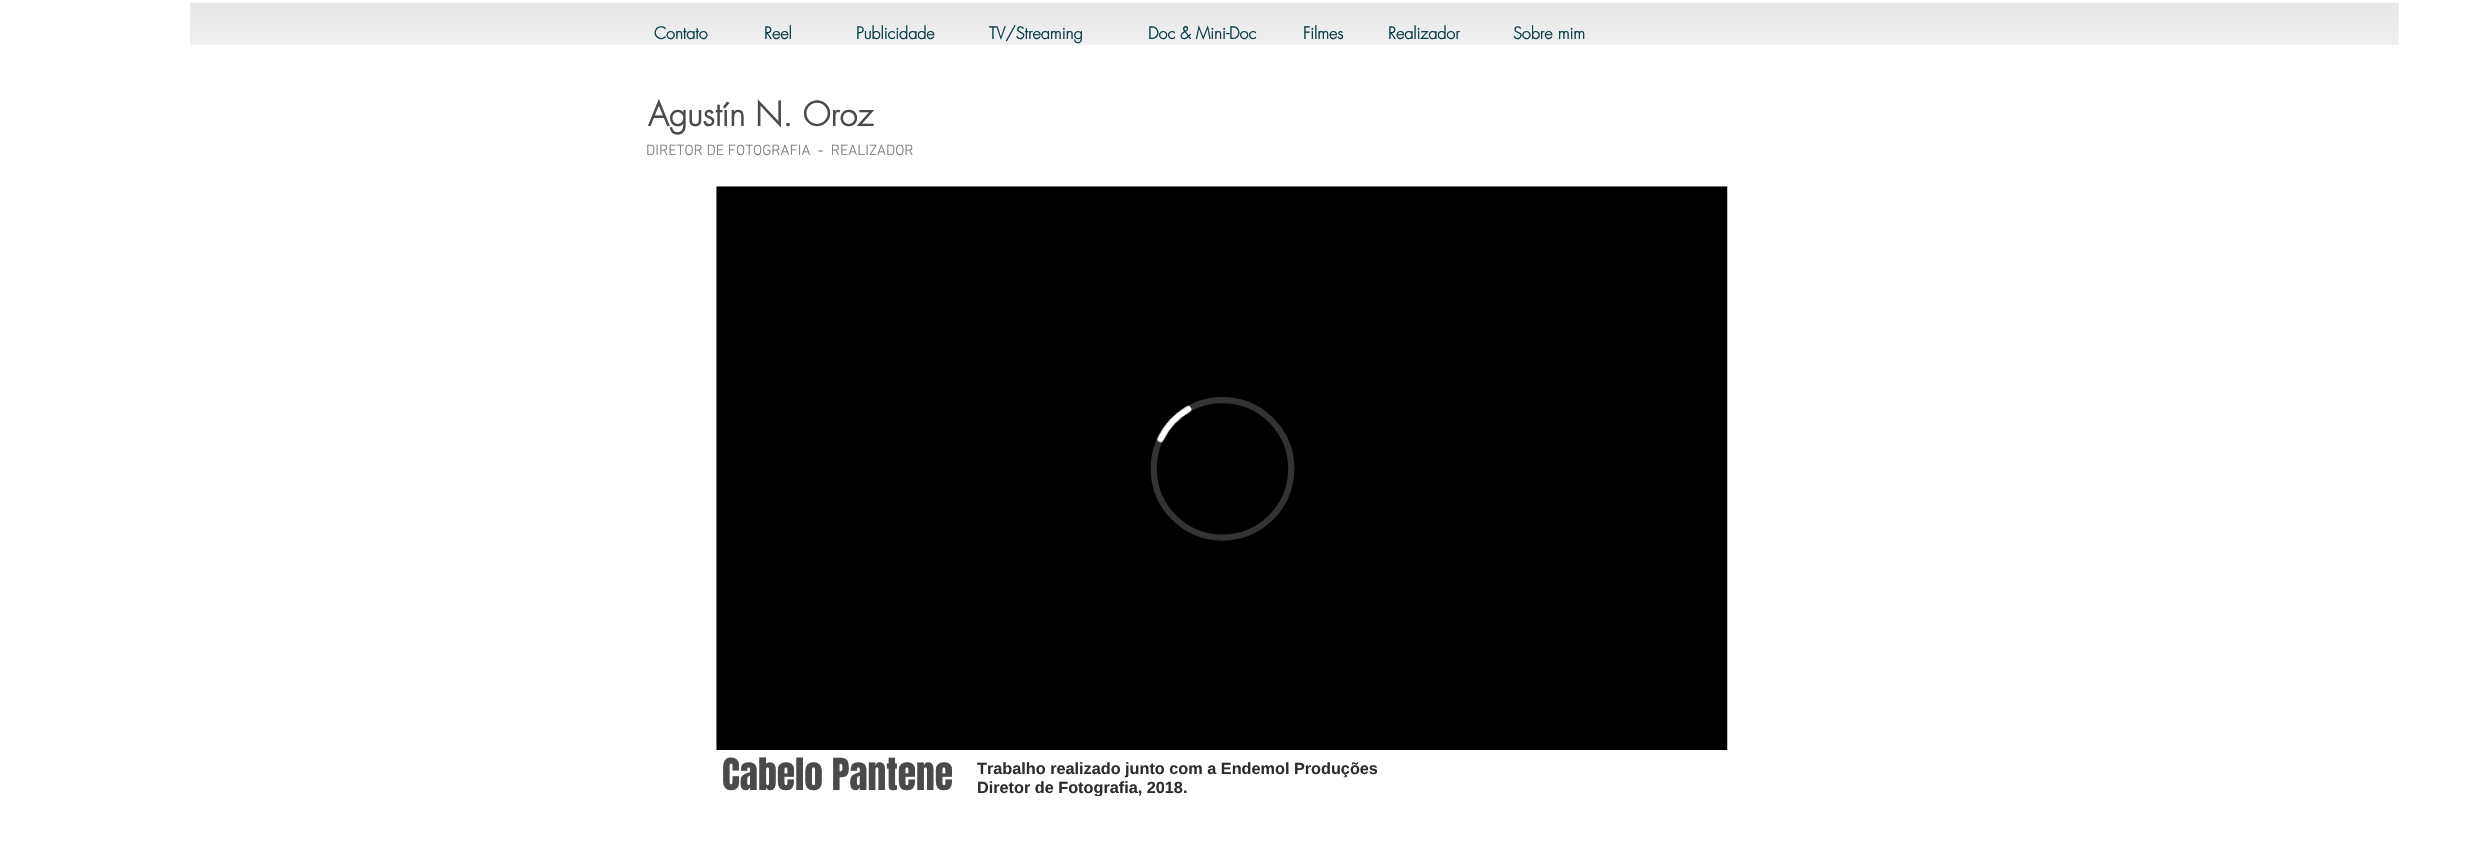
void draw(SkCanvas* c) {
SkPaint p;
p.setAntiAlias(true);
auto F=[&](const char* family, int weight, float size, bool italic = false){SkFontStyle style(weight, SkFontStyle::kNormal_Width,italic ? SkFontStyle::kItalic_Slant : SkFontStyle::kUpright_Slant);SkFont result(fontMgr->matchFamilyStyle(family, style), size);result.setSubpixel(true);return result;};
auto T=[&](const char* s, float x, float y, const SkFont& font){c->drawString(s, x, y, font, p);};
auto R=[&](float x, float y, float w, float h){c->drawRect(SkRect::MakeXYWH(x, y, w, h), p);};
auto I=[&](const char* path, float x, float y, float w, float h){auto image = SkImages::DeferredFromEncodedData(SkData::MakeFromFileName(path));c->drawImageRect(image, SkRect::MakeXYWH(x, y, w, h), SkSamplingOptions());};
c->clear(0xffffffff);
I("1.png",190,2,2209,43);
auto f1 = F("futura",700,16.25);
p.setColor(0xff0a404a);
T("Contato",654,39,f1);
T("Reel",764,39,f1);
T("Publicidade",856,39,f1);
T("TV/Streaming",989,39,f1);
T("Doc & Mini-Doc",1148,39,f1);
T("Filmes",1303,39,f1);
T("Realizador",1388,39,f1);
T("Sobre mim",1513,39,f1);
auto f2 = F("futura",700,32.5);
p.setColor(0xff4a4a4a);
T("Agustín N. Oroz",648,126,f2);
auto f3 = F("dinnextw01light",300,15);
p.setColor(0xff767676);
T("DIRETOR DE FOTOGRAFIA  -  REALIZADOR",646,155,f3);
I("2.png",716,186,1012,564);
auto f4 = F("Anton",400,37.5);
p.setColor(0xff4a4a4a);
T("Cabelo Pantene",722,790,f4);
auto f5 = F("Liberation Sans",700,16.25);
p.setColor(0xff2d2d2d);
T("Trabalho realizado junto com a Endemol Produções",977,774,f5);
T("Diretor de Fotografia, 2018.",977,793,f5);
p.setColor(0xffffffff);
R(1096,796,5,1);
}
